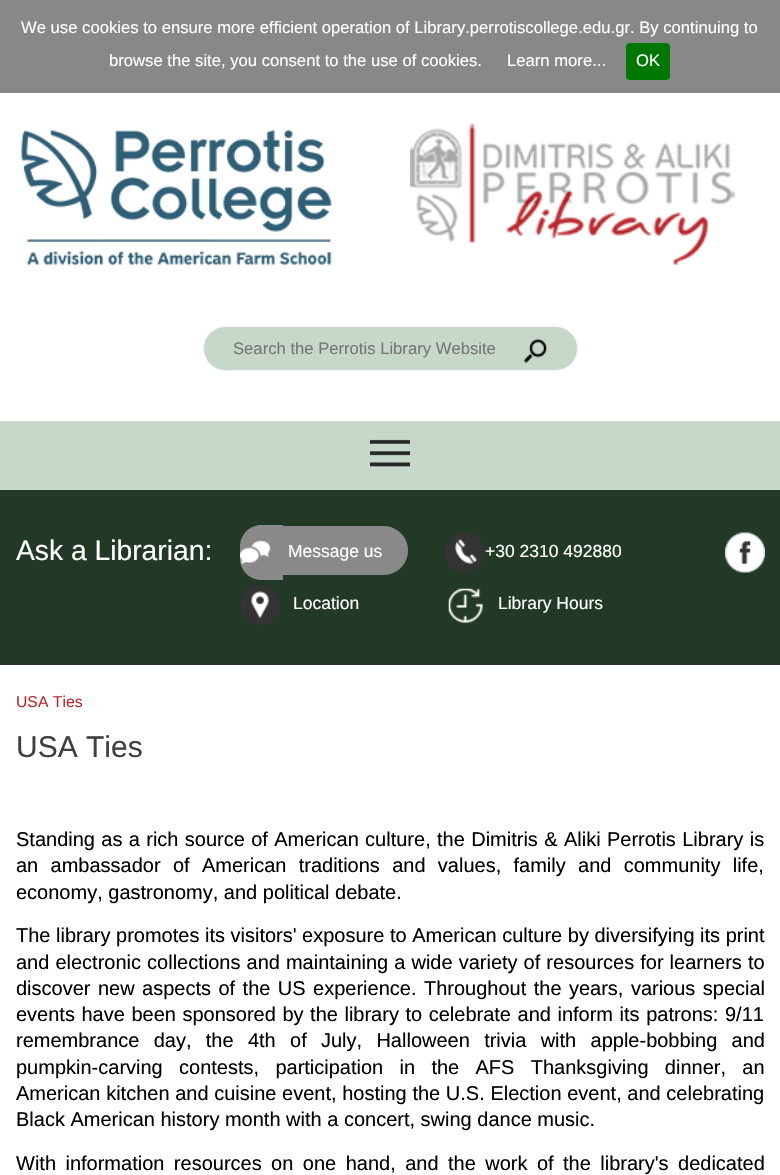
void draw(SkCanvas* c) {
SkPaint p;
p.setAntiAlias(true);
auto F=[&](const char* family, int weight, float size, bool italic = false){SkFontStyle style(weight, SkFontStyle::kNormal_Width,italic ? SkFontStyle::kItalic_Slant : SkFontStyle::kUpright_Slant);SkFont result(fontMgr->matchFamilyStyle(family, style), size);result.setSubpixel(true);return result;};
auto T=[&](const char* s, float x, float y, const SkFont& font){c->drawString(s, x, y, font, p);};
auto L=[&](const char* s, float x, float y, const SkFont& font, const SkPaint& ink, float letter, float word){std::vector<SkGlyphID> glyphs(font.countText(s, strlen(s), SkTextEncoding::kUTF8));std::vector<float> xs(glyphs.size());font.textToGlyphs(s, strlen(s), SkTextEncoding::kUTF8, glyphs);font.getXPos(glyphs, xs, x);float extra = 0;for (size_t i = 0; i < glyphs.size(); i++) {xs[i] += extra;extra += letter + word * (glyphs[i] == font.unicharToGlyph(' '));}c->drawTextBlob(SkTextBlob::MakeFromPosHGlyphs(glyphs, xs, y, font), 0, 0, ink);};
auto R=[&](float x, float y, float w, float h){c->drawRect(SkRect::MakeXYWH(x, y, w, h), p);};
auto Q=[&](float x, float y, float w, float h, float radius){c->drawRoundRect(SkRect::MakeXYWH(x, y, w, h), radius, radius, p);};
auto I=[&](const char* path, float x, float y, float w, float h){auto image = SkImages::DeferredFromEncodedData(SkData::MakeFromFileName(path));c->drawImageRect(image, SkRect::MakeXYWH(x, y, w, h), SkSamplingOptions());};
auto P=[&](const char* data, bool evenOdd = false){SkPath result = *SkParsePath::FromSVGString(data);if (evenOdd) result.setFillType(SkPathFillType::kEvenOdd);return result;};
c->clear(0xffffffff);
p.setColor(0xff888888);
R(0,0,780,93);
auto f1 = F("Arimo",400,16.65);
p.setColor(0xffffffff);
T("We use cookies to ensure more efficient operation of Library.perrotiscollege.edu.gr. By continuing to",21,33,f1);
T("browse the site, you consent to the use of cookies.",109,66,f1);
T("Learn more...",507,66,f1);
p.setColor(0xff007700);
Q(626,43,44,37,4);
p.setColor(0xffffffff);
T("OK",636,66,f1);
I("1.png",21,130,311,136);
I("2.png",410,123,325,142);
p.setColor(0xffc7d8ca);
c->drawRoundRect(SkRect::MakeXYWH(203.5,326.5,374,44),22,22,p);
p.setStroke(true);
p.setStrokeWidth(1);
p.setColor(0xfff5f5f5);
c->drawRoundRect(SkRect::MakeXYWH(203.5,326.5,374,44),22,22,p);
p.setStroke(false);
p.setColor(0xff757575);
T("Search the Perrotis Library Website",233,354,f1);
I("3.png",523,338,24,25);
p.setColor(0xffc7d8ca);
R(0,421,780,69);
I("4.png",370,439,40,28);
p.setColor(0xff233927);
R(0,490,780,175);
auto f2 = F("Arimo",400,28.25);
p.setColor(0xffffffff);
T("Ask a Librarian:",16,560,f2);
p.setColor(0xff898989);
c->drawPath(P("M261.5 525h21.5v55h-21.5c-12 0-21.5-9.5-21.5-21.5v-12c0-12 9.5-21.5 21.5-21.5z"),p);
I("5.png",240,540,31,24);
c->drawPath(P("M283 526h100.5c13.5 0 24.5 11 24.5 24.5c0 13.5-11 24.5-24.5 24.5h-100.5z"),p);
auto f3 = F("Arimo",400,17.5);
p.setColor(0xffffffff);
T("Message us",288,557,f3);
I("6.png",445,532,40,41);
T("+30 2310 492880",485,557,f3);
I("7.png",240,585,40,40);
T("Location",293,609,f3);
I("8.png",448,588,35,35);
T("Library Hours",498,609,f3);
I("9.png",725,532,40,41);
auto f4 = F("Arimo",400,15.75);
p.setColor(0xffb8292f);
T("USA Ties",16,707,f4);
auto f5 = F("Arimo",400,30);
p.setColor(0xff413e3f);
T("USA Ties",16,757,f5);
auto f6 = F("Liberation Sans",400,20);
p.setColor(0xff000000);
L("Standing as a rich source of American culture, the Dimitris & Aliki Perrotis Library is",16,846,f6,p,0,.8);
L("an ambassador of American traditions and values, family and community life,",16,872,f6,p,0,6.75);
T("economy, gastronomy, and political debate.",16,899,f6);
T("The library promotes its visitors' exposure to American culture by diversifying its print",16,942,f6);
L("and electronic collections and maintaining a wide variety of resources for learners to",16,969,f6,p,0,.5);
L("discover new aspects of the US experience. Throughout the years, various special",16,995,f6,p,0,1.9);
L("events have been sponsored by the library to celebrate and inform its patrons: 9/11",16,1021,f6,p,0,1);
L("remembrance day, the 4th of July, Halloween trivia with apple-bobbing and",16,1047,f6,p,0,8.75);
L("pumpkin-carving contests, participation in the AFS Thanksgiving dinner, an",16,1074,f6,p,0,10.75);
L("American kitchen and cuisine event, hosting the U.S. Election event, and celebrating",16,1100,f6,p,0,.1);
T("Black American history month with a concert, swing dance music.",16,1126,f6);
L("With information resources on one hand, and the work of the library's dedicated",16,1170,f6,p,0,3.9);
}
